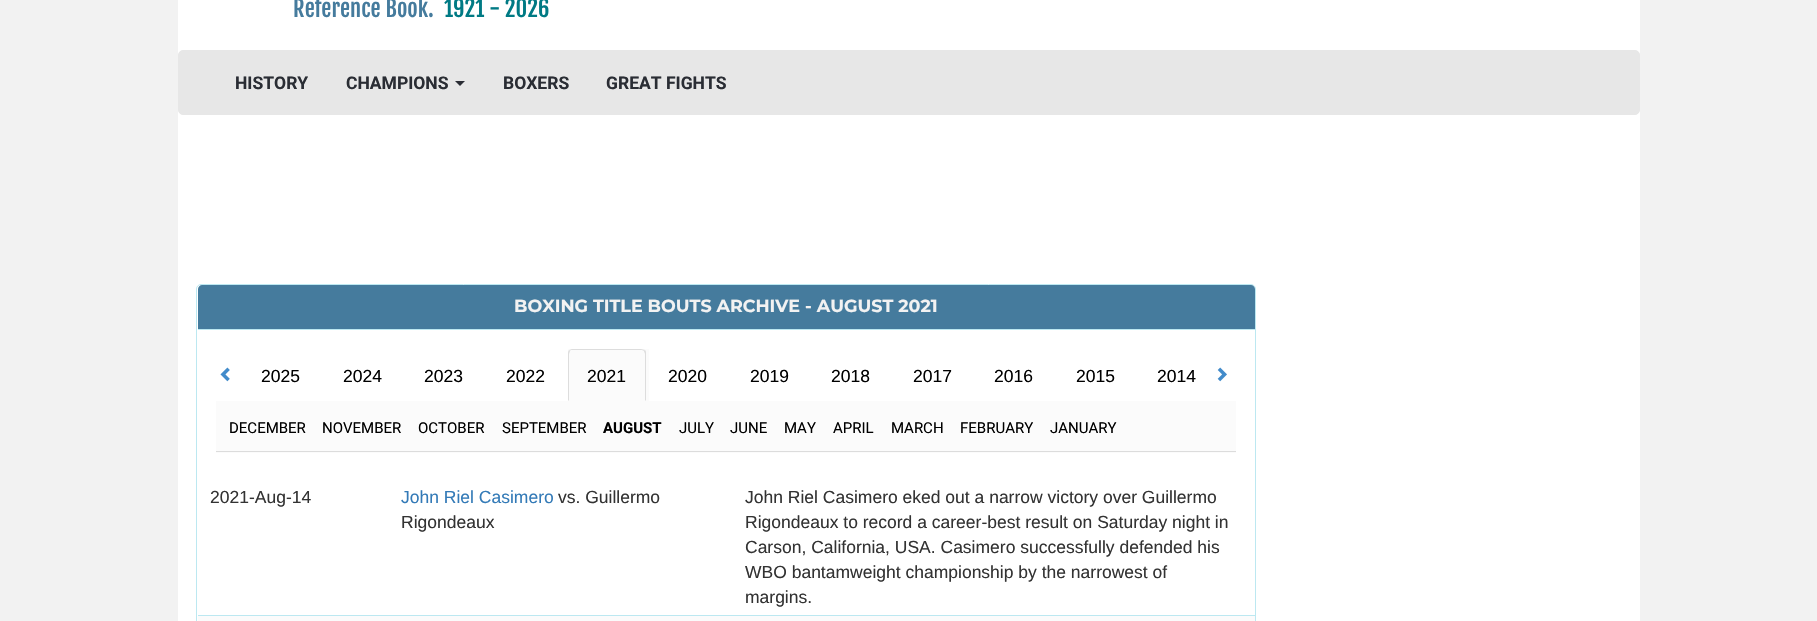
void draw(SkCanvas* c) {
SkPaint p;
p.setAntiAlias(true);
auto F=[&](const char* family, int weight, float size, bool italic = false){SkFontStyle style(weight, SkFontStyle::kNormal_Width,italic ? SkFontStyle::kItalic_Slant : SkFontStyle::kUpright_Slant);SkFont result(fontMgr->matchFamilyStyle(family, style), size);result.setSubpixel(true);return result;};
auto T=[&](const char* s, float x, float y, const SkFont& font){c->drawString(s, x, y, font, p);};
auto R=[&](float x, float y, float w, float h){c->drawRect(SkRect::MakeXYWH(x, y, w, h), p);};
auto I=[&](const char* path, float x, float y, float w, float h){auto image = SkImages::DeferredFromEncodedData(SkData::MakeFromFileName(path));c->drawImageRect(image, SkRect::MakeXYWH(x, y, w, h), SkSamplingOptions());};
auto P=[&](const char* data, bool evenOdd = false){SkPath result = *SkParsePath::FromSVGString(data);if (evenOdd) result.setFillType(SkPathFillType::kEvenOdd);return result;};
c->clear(0xfff2f2f2);
p.setColor(0xffffffff);
R(178,0,1462,621);
auto f1 = F("Fjalla One",400,22.5);
p.setColor(0xff457b9d);
T("Reference Book.",293,17,f1);
p.setColor(0xff007a84);
T("1921 - 2026",444,17,f1);
p.setColor(0xffe7e7e7);
c->drawRoundRect(SkRect::MakeXYWH(178.5,50.5,1461,64),4.5,4.5,p);
p.setStroke(true);
p.setStrokeWidth(1);
c->drawRoundRect(SkRect::MakeXYWH(178.5,50.5,1461,64),4.5,4.5,p);
auto f2 = F("Roboto",700,17.5);
p.setStroke(false);
p.setColor(0xff2a2d34);
T("HISTORY",235,89,f2);
T("CHAMPIONS",346,89,f2);
c->drawPath(P("M455 81h10l-5 5z"),p);
T("BOXERS",503,89,f2);
T("GREAT FIGHTS",606,89,f2);
p.setStroke(true);
p.setColor(0xffbce8f1);
c->drawRoundRect(SkRect::MakeXYWH(196.5,284.5,1059,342),4.5,4.5,p);
p.setStroke(false);
p.setColor(0xff457b9d);
c->drawPath(P("M202 285h1049c2 0 4 2 4 4v41h-1057v-41c0-2 2-4 4-4z"),p);
p.setColor(0xffbce8f1);
R(198,329,1057,1);
auto f3 = F("Montserrat",700,17.5);
p.setColor(0xfff2f2f2);
T("BOXING TITLE BOUTS ARCHIVE - AUGUST 2021",514,312,f3);
I("1.png",220,367,10,15);
auto f4 = F("Liberation Sans",400,17.5);
p.setColor(0xff000000);
T("2025",261,382,f4);
T("2024",343,382,f4);
T("2023",424,382,f4);
T("2022",506,382,f4);
p.setColor(0xfffbfbfb);
R(568,349,81,52);
p.setColor(0xffdddddd);
c->drawPath(P("M572 349c-1 0-2 1-3 1l1 1c0-1 1-1 2-1h69c1 0 2 0 3 1l1-1c-1 0-3-1-4-1z"),p);
c->drawPath(P("M646 401v-47c0-2 0-3-1-4l-1 1c0 1 1 2 1 3v46z"),p);
c->drawPath(P("M569 350c-1 1-1 3-1 4v47l1-1v-46l1-3z"),p);
p.setColor(0xff000000);
T("2021",587,382,f4);
T("2020",668,382,f4);
T("2019",750,382,f4);
T("2018",831,382,f4);
T("2017",913,382,f4);
T("2016",994,382,f4);
T("2015",1076,382,f4);
T("2014",1157,382,f4);
I("2.png",1217,367,10,15);
p.setColor(0xfffbfbfb);
R(216,401,1020,52);
p.setColor(0xffdcdcdc);
R(216,451,1020,1);
auto f5 = F("Roboto",400,15);
p.setColor(0xff000000);
T("DECEMBER",229,433,f5);
T("NOVEMBER",322,433,f5);
T("OCTOBER",418,433,f5);
T("SEPTEMBER",502,433,f5);
auto f6 = F("Roboto",700,15);
T("AUGUST",603,433,f6);
T("JULY",679,433,f5);
T("JUNE",730,433,f5);
T("MAY",784,433,f5);
T("APRIL",833,433,f5);
T("MARCH",891,433,f5);
T("FEBRUARY",960,433,f5);
T("JANUARY",1050,433,f5);
p.setColor(0xffbce8f1);
R(198,615,1057,1);
p.setColor(0xff333333);
T("2021-Aug-14",210,503,f4);
p.setColor(0xff337ab7);
T("John Riel Casimero",401,503,f4);
p.setColor(0xff333333);
T("vs. Guillermo",558,503,f4);
T("Rigondeaux",401,528,f4);
T("John Riel Casimero eked out a narrow victory over Guillermo",745,503,f4);
T("Rigondeaux to record a career-best result on Saturday night in",745,528,f4);
T("Carson, California, USA. Casimero successfully defended his",745,553,f4);
T("WBO bantamweight championship by the narrowest of",745,578,f4);
T("margins.",745,603,f4);
p.setColor(0xfffbfbfb);
R(198,616,1057,5);
}
